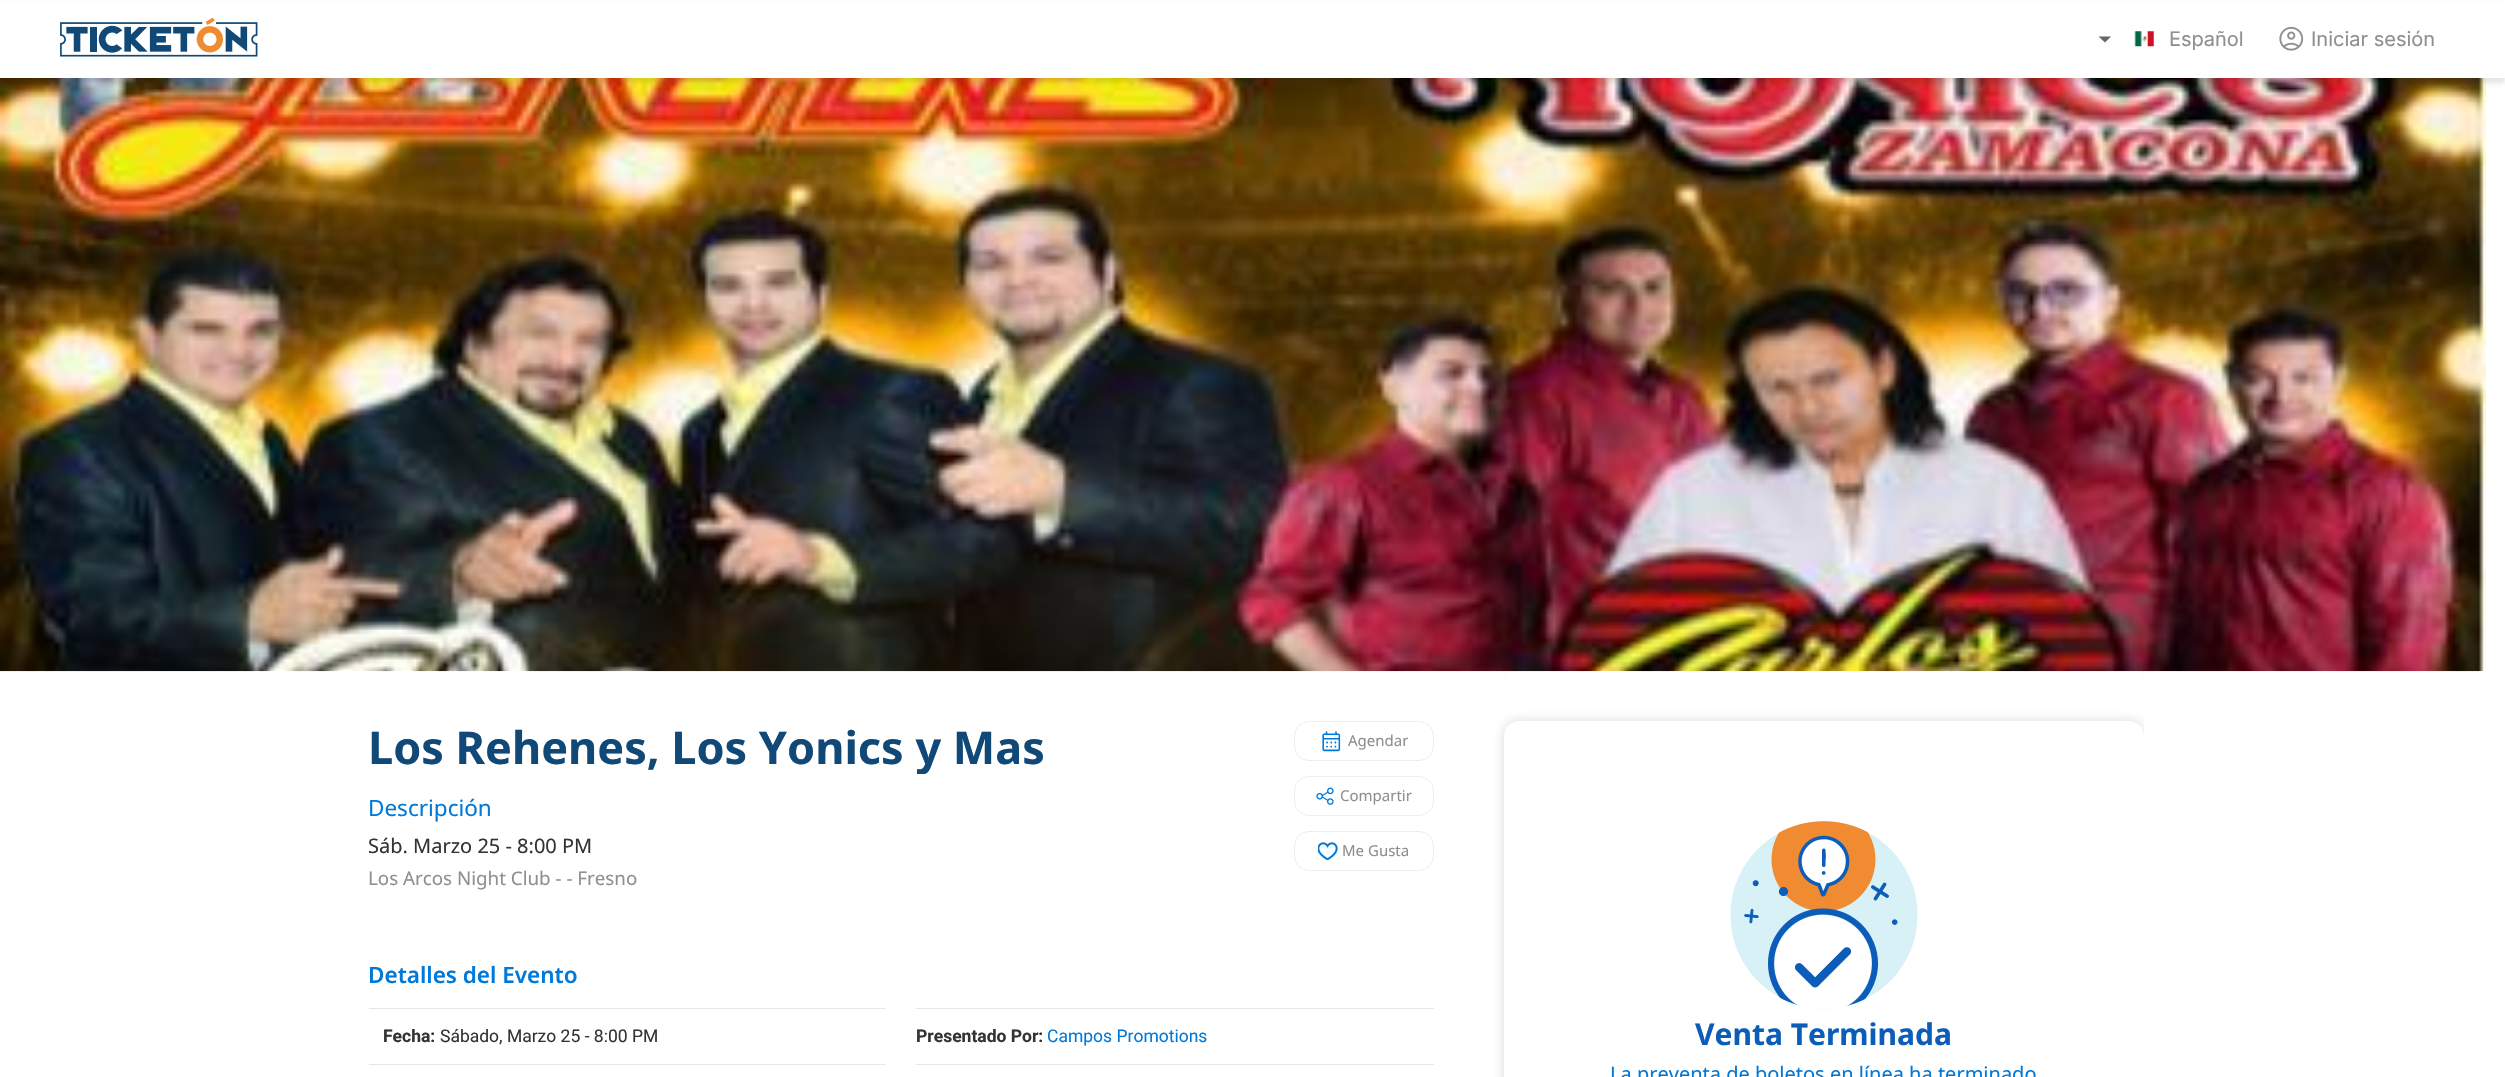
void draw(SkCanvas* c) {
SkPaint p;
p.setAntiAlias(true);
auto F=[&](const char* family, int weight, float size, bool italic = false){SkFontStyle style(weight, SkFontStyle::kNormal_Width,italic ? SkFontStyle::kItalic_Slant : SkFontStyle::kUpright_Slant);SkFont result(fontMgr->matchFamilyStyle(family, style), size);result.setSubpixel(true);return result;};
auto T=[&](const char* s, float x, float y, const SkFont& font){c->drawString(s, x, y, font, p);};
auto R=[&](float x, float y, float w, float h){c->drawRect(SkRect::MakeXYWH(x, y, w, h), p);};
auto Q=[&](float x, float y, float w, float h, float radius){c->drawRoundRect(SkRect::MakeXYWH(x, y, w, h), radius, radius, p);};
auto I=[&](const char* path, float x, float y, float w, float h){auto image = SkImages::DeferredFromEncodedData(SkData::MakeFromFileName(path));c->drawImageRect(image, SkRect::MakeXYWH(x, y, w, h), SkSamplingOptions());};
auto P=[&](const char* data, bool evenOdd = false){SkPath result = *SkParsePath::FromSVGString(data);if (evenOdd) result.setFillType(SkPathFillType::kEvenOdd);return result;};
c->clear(0xffffffff);
p.setColor(0xfffcfcfc);
R(1504,671,640,8);
p.setColor(0xffffffff);
Q(1504,671,640,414,8);
I("4.png",0,78,2487,594);
p.setColor(0x1a000000);
p.setMaskFilter(SkMaskFilter::MakeBlur(kNormal_SkBlurStyle, 2.5));
c->drawRect(SkRect::MakeXYWH(0,5,2505,78),p);
p.setMaskFilter(nullptr);
p.setColor(0xffffffff);
R(0,2,2505,76);
I("1.png",60,18,198,39);
p.setColor(0xff666666);
c->drawPath(P("M2098.5 36.5h12.5l-6 6z"),p);
I("2.png",2134,31,20,16);
auto f1 = F("Inter",400,20);
p.setColor(0xff8e8e93);
T("Español",2169,46,f1);
I("3.png",2279,26,25,25);
T("Iniciar sesión",2311,46,f1);
c->save();
c->clipRect(SkRect::MakeXYWH(369,721,676,53));
auto f2 = F("Noto Sans",700,45);
p.setColor(0xff104977);
T("Los Rehenes, Los Yonics y Mas",368,764,f2);
c->restore();
auto f3 = F("Noto Sans",400,22.5);
p.setColor(0xff0079d9);
T("Descripción",368,816,f3);
auto f4 = F("Noto Sans",400,20);
p.setColor(0xff333333);
T("Sáb. Marzo 25 - 8:00 PM",368,853,f4);
auto f5 = F("Noto Sans",400,18.75);
p.setColor(0xff8e8e93);
T("Los Arcos Night Club - - Fresno",368,885,f5);
p.setStroke(true);
p.setStrokeWidth(1);
p.setColor(0xffededef);
c->drawRoundRect(SkRect::MakeXYWH(1294.5,721.5,139,39),14.5,14.5,p);
I("5.png",1322,731,19,21);
auto f6 = F("Noto Sans",400,15);
p.setStroke(false);
p.setColor(0xff8e8e93);
T("Agendar",1348,746,f6);
p.setStroke(true);
p.setColor(0xffededef);
c->drawRoundRect(SkRect::MakeXYWH(1294.5,776.5,139,39),14.5,14.5,p);
I("6.png",1316,787,18,18);
p.setStroke(false);
p.setColor(0xff8e8e93);
T("Compartir",1340,801,f6);
p.setStroke(true);
p.setColor(0xffededef);
c->drawRoundRect(SkRect::MakeXYWH(1294.5,831.5,139,39),14.5,14.5,p);
I("7.png",1318,842,20,19);
p.setStroke(false);
p.setColor(0xff8e8e93);
T("Me Gusta",1342,856,f6);
auto f7 = F("Noto Sans",600,22.5);
p.setColor(0xff0079d9);
T("Detalles del Evento",368,983,f7);
p.setColor(0xffe5e5ea);
R(369,1008,517,1);
auto f8 = F("Roboto",700,17.5);
p.setColor(0xff333333);
T("Fecha:",383,1042,f8);
auto f9 = F("Roboto",400,17.5);
T("Sábado, Marzo 25 - 8:00 PM",440,1042,f9);
p.setColor(0xffe5e5ea);
R(369,1064,517,1);
R(916,1008,518,1);
p.setColor(0xff333333);
T("Presentado Por:",916,1042,f8);
p.setColor(0xff0079d9);
T("Campos Promotions",1047,1042,f9);
p.setColor(0xffe5e5ea);
R(916,1064,518,1);
c->save();
c->clipRect(SkRect::MakeXYWH(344,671,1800,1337));
c->clipPath(P("M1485 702h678v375h-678zm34 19h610c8.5 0 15 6.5 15 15v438c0 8.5-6.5 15-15 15h-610c-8.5 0-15-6.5-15-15v-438c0-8.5 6.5-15 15-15z",true),true);
p.setColor(0x33404045);
p.setMaskFilter(SkMaskFilter::MakeBlur(kNormal_SkBlurStyle, 6));
c->drawRoundRect(SkRect::MakeXYWH(1504,721,640,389),15,15,p);
p.setMaskFilter(nullptr);
c->restore();
I("8.png",1730,821,188,188);
auto f10 = F("Noto Sans",700,30);
p.setColor(0xff0c5db9);
T("Venta Terminada",1695,1045,f10);
p.setColor(0xff0079d9);
T("La preventa de boletos en línea ha terminado",1610,1081,f4);
}
